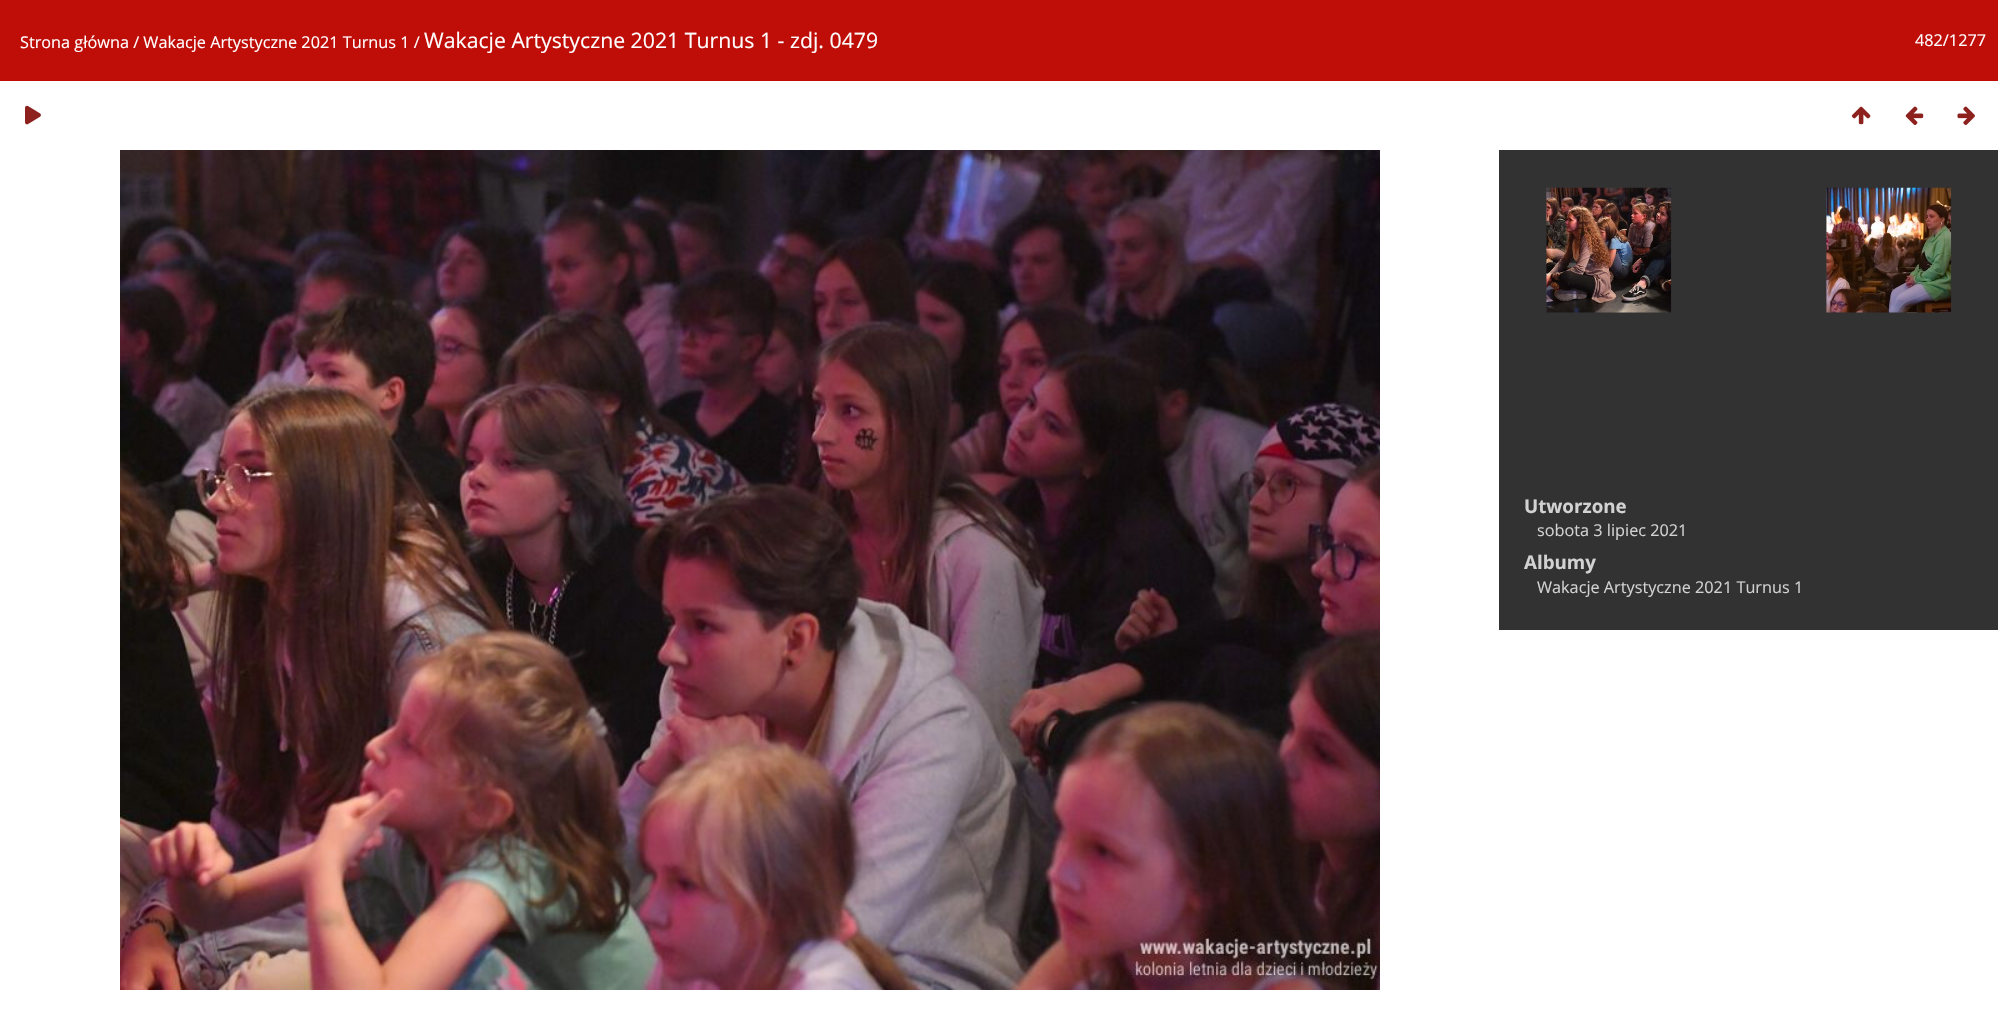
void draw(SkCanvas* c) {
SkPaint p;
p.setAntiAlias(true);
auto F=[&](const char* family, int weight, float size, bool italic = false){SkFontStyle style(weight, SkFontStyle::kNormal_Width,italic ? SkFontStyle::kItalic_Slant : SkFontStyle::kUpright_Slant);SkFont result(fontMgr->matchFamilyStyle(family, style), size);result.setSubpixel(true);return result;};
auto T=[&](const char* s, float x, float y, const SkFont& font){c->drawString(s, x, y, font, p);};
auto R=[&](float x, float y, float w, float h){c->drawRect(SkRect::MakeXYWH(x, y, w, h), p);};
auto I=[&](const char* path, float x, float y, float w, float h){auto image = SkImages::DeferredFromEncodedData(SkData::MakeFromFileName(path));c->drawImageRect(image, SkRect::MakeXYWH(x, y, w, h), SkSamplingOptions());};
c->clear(0xffffffff);
p.setColor(0xffbf0d08);
R(0,0,1998,81);
auto f1 = F("Open Sans",400,16.25);
p.setColor(0xffffffff);
T("Strona główna / Wakacje Artystyczne 2021 Turnus 1 /",20,48,f1);
auto f2 = F("Open Sans",400,21.25);
T("Wakacje Artystyczne 2021 Turnus 1 - zdj. 0479",424,48,f2);
T("482/1277",1915,46,f1);
I("1.png",25,105,16,20);
I("2.png",1851,106,20,19);
I("3.png",1905,106,19,19);
I("4.png",1957,106,18,19);
I("5.png",120,150,1260,840);
p.setColor(0xff323232);
R(1499,150,499,480);
I("6.png",1546,187,126,126);
I("7.png",1826,187,126,126);
auto f3 = F("Open Sans",700,18.75);
p.setColor(0xffd2d2d2);
T("Utworzone",1524,513,f3);
T("sobota 3 lipiec 2021",1537,536,f1);
T("Albumy",1524,569,f3);
T("Wakacje Artystyczne 2021 Turnus 1",1537,593,f1);
}
